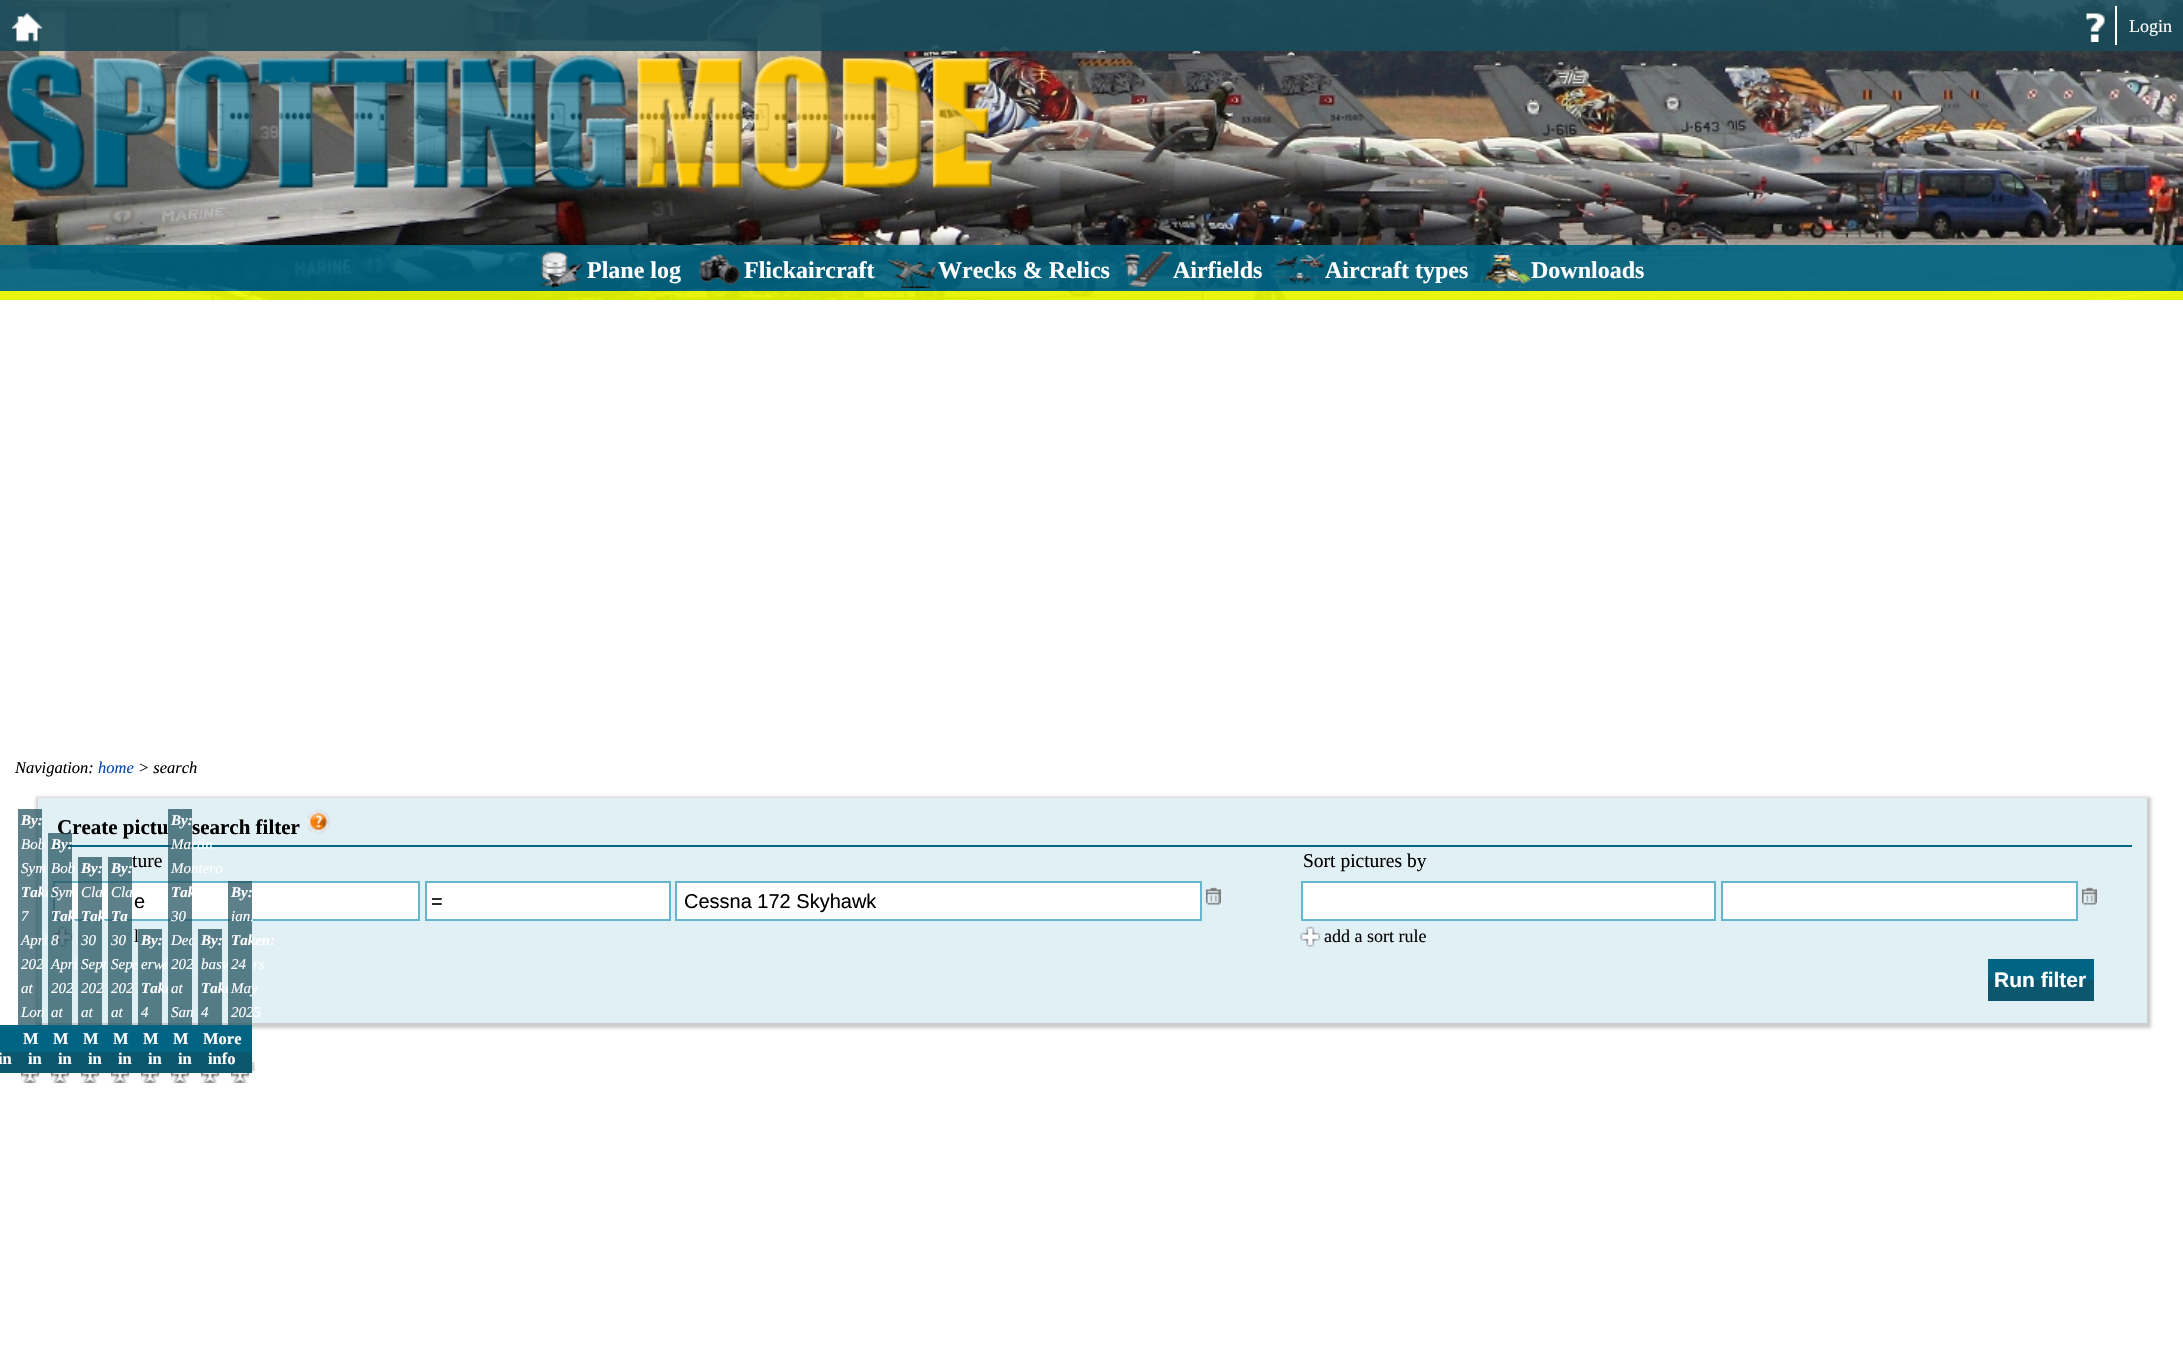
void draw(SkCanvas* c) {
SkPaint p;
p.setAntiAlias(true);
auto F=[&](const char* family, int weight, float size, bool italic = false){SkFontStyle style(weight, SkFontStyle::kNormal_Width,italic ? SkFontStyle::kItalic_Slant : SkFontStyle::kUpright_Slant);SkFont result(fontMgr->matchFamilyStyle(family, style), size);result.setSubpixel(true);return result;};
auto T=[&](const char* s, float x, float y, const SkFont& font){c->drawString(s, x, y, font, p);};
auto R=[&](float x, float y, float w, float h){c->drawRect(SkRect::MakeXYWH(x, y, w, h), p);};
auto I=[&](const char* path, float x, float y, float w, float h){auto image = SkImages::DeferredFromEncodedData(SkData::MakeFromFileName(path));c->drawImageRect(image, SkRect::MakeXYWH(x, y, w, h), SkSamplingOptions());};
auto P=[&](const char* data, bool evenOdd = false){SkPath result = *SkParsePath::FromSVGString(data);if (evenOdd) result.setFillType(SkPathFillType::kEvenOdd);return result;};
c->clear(0xffffffff);
I("1.png",0,0,2183,300);
p.setColor(0xe6eeff00);
R(0,291,2183,9);
p.setColor(0xe6184a59);
R(0,0,2183,51);
I("2.png",12,12,30,30);
I("3.png",2086,13,19,29);
p.setColor(0xffffffff);
R(2115,6,2,39);
auto f1 = F("Liberation Serif",400,18);
T("Login",2129,32,f1);
I("4.png",7,55,986,136);
p.setColor(0xe6006482);
R(0,245,2183,46);
I("5.png",540,251,44,37);
auto f2 = F("Liberation Serif",700,24);
p.setColor(0xffffffff);
T("Plane log",587,278,f2);
I("6.png",699,253,42,33);
T("Flickaircraft",744,278,f2);
I("7.png",888,259,50,29);
T("Wrecks & Relics",938,278,f2);
I("8.png",1123,250,50,38);
T("Airfields",1173,278,f2);
I("9.png",1275,253,50,31);
T("Aircraft types",1325,278,f2);
I("10.png",1483,250,49,38);
T("Downloads",1531,278,f2);
auto f3 = F("Liberation Serif",400,16.5,true);
p.setColor(0xff000000);
T("Navigation:",15,773,f3);
p.setColor(0xff0645ad);
T("home",98,773,f3);
p.setColor(0xff000000);
T("> search",138,773,f3);
c->save();
c->clipPath(P("M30 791h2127v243h-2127zm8 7h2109v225h-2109z",true),true);
p.setColor(0x33000000);
p.setMaskFilter(SkMaskFilter::MakeBlur(kNormal_SkBlurStyle, 1.5));
c->drawRect(SkRect::MakeXYWH(36,797,2115,231),p);
p.setMaskFilter(nullptr);
c->restore();
p.setColor(0x3367b6cf);
R(38,798,2109,225);
p.setColor(0xb3184a59);
R(18,809,24,216);
auto f4 = F("Liberation Serif",700,15,true);
p.setColor(0xffffffff);
T("By:",21,825,f4);
auto f5 = F("Liberation Serif",400,15,true);
T("Bob",21,849,f5);
T("Sym",21,873,f5);
T("Take",21,897,f4);
T("7",21,921,f5);
T("Apri",21,945,f5);
T("202",21,969,f5);
T("at",21,993,f5);
T("Lon",21,1017,f5);
I("12.png",28,1073,10,2);
I("11.png",21,1073,19,10);
p.setColor(0xff006482);
R(0,1025,252,27);
p.setColor(0xff0c576e);
R(0,1052,192,21);
auto f6 = F("Liberation Serif",700,16.5);
p.setColor(0xffffffff);
T("in",-2,1064,f6);
T("e",162,969,f5);
T("e",132,969,f5);
p.setColor(0xff000000);
T("l",134,942,f1);
p.setColor(0xb3184a59);
R(138,929,24,96);
p.setColor(0xffffffff);
T("Take",141,993,f4);
p.setColor(0xff006482);
R(53,845,2079,2);
p.setColor(0xffffffff);
c->drawRect(SkRect::MakeXYWH(54,882,365,38),p);
p.setStroke(true);
p.setStrokeWidth(2);
p.setColor(0xff67b6cf);
c->drawRect(SkRect::MakeXYWH(54,882,365,38),p);
p.setStroke(false);
p.setColor(0xb3184a59);
R(168,809,24,216);
p.setColor(0xffffffff);
T("By:",171,825,f4);
T("Martin",171,849,f5);
T("Montero",171,873,f5);
T("Tak",171,897,f4);
T("30",171,921,f5);
T("Dec",171,945,f5);
T("202",171,969,f5);
T("at",171,993,f5);
T("San",171,1017,f5);
I("12.png",178,1073,10,2);
I("11.png",171,1073,19,10);
T("M",143,1044,f6);
T("in",148,1064,f6);
auto f7 = F("Liberation Serif",700,21);
p.setColor(0xff000000);
T("Create pictu",57,834,f7);
I("16.png",52,926,21,21);
p.setColor(0xb3184a59);
R(48,833,24,192);
p.setColor(0xffffffff);
T("By:",51,849,f4);
T("Bob",51,873,f5);
T("Sym",51,897,f5);
T("Tak",51,921,f4);
T("8",51,945,f5);
T("Apri",51,969,f5);
T("202",51,993,f5);
T("at",51,1017,f5);
I("12.png",58,1073,10,2);
I("11.png",51,1073,19,10);
T("M",23,1044,f6);
T("in",28,1064,f6);
p.setColor(0xb3184a59);
R(78,857,24,168);
p.setColor(0xffffffff);
T("By:",81,873,f4);
T("Cla",81,897,f5);
T("Tak",81,921,f4);
T("30",81,945,f5);
T("Sept",81,969,f5);
T("202",81,993,f5);
T("at",81,1017,f5);
I("12.png",88,1073,10,2);
I("11.png",81,1073,19,10);
T("M",53,1044,f6);
T("in",58,1064,f6);
p.setColor(0xb3184a59);
R(108,857,24,168);
p.setColor(0xffffffff);
T("By:",111,873,f4);
T("Cla",111,897,f5);
T("Ta",111,921,f4);
T("30",111,945,f5);
T("Sep",111,969,f5);
T("202",111,993,f5);
T("at",111,1017,f5);
I("12.png",118,1073,10,2);
I("11.png",111,1073,19,10);
T("M",83,1044,f6);
T("in",88,1064,f6);
p.setColor(0xb3184a59);
R(198,929,24,96);
p.setColor(0xffffffff);
T("basv",201,969,f5);
T("Take",201,993,f4);
p.setColor(0xb3184a59);
R(228,881,24,144);
p.setColor(0xffffffff);
T("By:",231,897,f4);
T("ian.",231,921,f5);
T("Taken:",231,945,f4);
T("24",231,969,f5);
T("May",231,993,f5);
T("2025",231,1017,f5);
I("13.png",238,1056,17,19);
I("11.png",231,1073,19,10);
p.setColor(0xff0c576e);
R(192,1052,60,21);
p.setColor(0xffffffff);
T("More",203,1044,f6);
T("info",208,1064,f6);
T("By:",141,945,f4);
T("erwi",141,969,f5);
T("4",141,1017,f5);
I("12.png",148,1073,10,2);
I("11.png",141,1073,19,10);
T("M",113,1044,f6);
T("in",118,1064,f6);
T("By:",201,945,f4);
T("rs",253,969,f5);
T("4",201,1017,f5);
I("12.png",208,1073,10,2);
I("11.png",201,1073,19,10);
T("M",173,1044,f6);
T("in",178,1064,f6);
p.setColor(0xff000000);
T("search filter",192,834,f7);
I("14.png",307,810,23,24);
auto f8 = F("Liberation Serif",400,19.5);
T("ture",132,867,f8);
auto f9 = F("Liberation Sans",400,20);
T("e",134,908,f9);
p.setColor(0xffffffff);
c->drawRect(SkRect::MakeXYWH(426,882,244,38),p);
p.setStroke(true);
p.setColor(0xff67b6cf);
c->drawRect(SkRect::MakeXYWH(426,882,244,38),p);
p.setStroke(false);
p.setColor(0xff000000);
T("=",431,908,f9);
p.setColor(0xffffffff);
c->drawRect(SkRect::MakeXYWH(676,882,525,38),p);
p.setStroke(true);
p.setColor(0xff67b6cf);
c->drawRect(SkRect::MakeXYWH(676,882,525,38),p);
p.setStroke(false);
p.setColor(0xff000000);
T("Cessna 172 Skyhawk",684,908,f9);
I("15.png",1206,887,15,18);
T("Sort pictures by",1303,867,f8);
p.setColor(0xffffffff);
c->drawRect(SkRect::MakeXYWH(1302,882,413,38),p);
p.setStroke(true);
p.setColor(0xff67b6cf);
c->drawRect(SkRect::MakeXYWH(1302,882,413,38),p);
p.setStroke(false);
p.setColor(0xffffffff);
c->drawRect(SkRect::MakeXYWH(1722,882,355,38),p);
p.setStroke(true);
p.setColor(0xff67b6cf);
c->drawRect(SkRect::MakeXYWH(1722,882,355,38),p);
I("15.png",2082,887,15,18);
I("17.png",1300,926,21,21);
p.setStroke(false);
p.setColor(0xff000000);
T("add a sort rule",1324,942,f1);
p.setColor(0xff006482);
R(1988,959,106,21);
p.setColor(0xff0c576e);
R(1988,980,106,21);
auto f10 = F("Liberation Sans",700,21);
p.setColor(0xffffffff);
T("Run filter",1994,987,f10);
}
